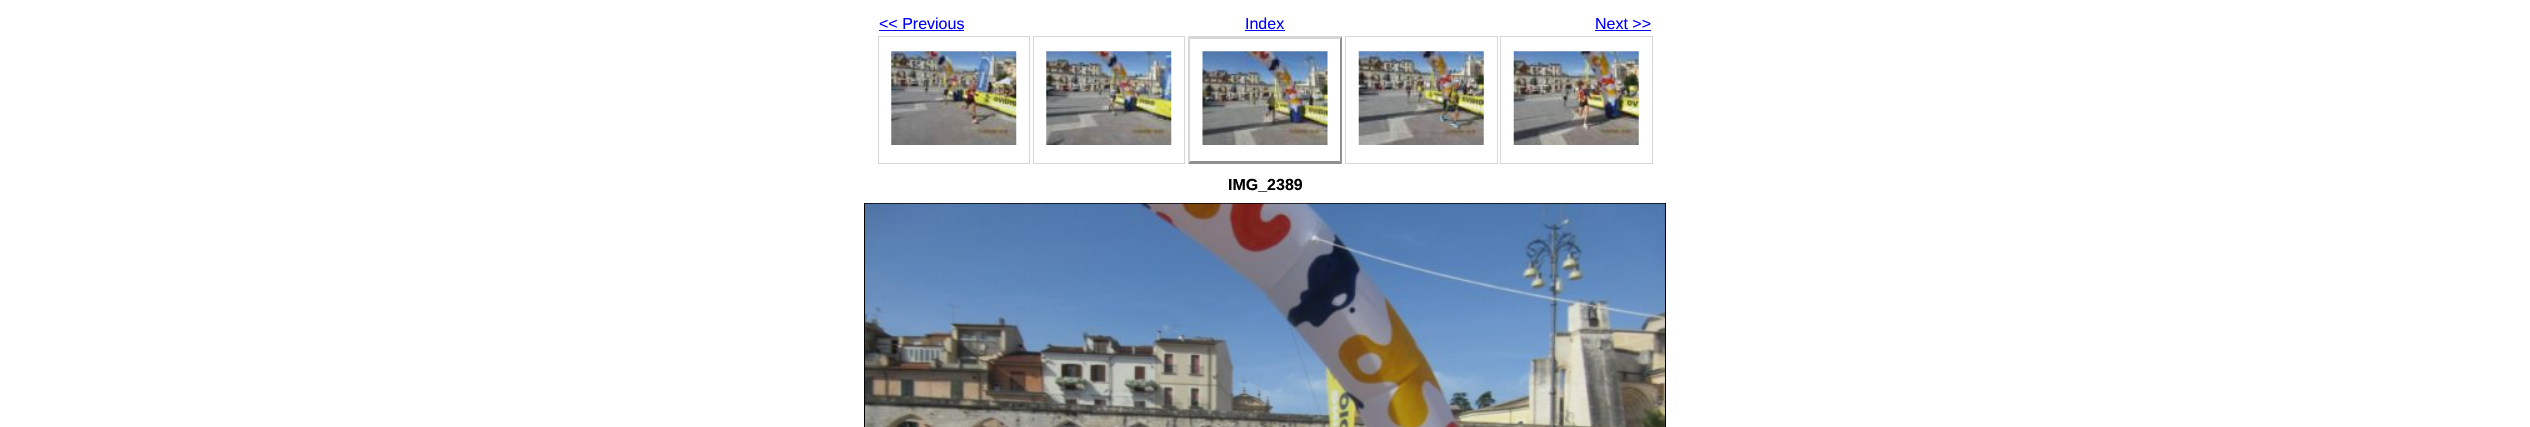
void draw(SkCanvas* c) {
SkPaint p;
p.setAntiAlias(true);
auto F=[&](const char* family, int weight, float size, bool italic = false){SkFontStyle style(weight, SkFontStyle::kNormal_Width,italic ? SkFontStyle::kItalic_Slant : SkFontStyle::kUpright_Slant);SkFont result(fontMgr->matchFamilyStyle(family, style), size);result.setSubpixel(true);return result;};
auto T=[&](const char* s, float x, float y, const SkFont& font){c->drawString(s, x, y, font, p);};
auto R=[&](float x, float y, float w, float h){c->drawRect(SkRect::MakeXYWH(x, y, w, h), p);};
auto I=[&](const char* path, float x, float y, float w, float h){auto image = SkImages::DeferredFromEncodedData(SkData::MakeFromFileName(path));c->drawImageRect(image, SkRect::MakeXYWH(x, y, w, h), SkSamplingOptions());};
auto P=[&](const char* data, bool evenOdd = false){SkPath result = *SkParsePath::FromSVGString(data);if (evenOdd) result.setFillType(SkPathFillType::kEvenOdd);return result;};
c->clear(0xffffffff);
auto f1 = F("Liberation Sans",400,16);
p.setColor(0xff0000ff);
T("<< Previous",879,29,f1);
R(879,30,85,1);
T("Index",1245,29,f1);
R(1245,30,40,1);
T("Next >>",1595,29,f1);
R(1595,30,56,1);
p.setStroke(true);
p.setStrokeWidth(1);
p.setColor(0xffd7d7d7);
c->drawRect(SkRect::MakeXYWH(878.5,36.5,151,127),p);
I("1.png",891,51,126,94);
c->drawRect(SkRect::MakeXYWH(1033.5,36.5,151,127),p);
I("2.png",1046,51,126,94);
p.setStroke(false);
c->drawPath(P("M1188 36h154l-2 3h-150z"),p);
p.setColor(0xff8f8f8f);
c->drawPath(P("M1342 36v128l-2-3v-122z"),p);
c->drawPath(P("M1342 164h-154l2-3h150z"),p);
p.setColor(0xffd7d7d7);
c->drawPath(P("M1188 164v-128l2 3v122z"),p);
I("3.png",1202,51,126,94);
p.setStroke(true);
c->drawRect(SkRect::MakeXYWH(1345.5,36.5,152,127),p);
I("4.png",1358,51,126,94);
c->drawRect(SkRect::MakeXYWH(1500.5,36.5,152,127),p);
I("5.png",1513,51,126,94);
auto f2 = F("Liberation Sans",700,16);
p.setStroke(false);
p.setColor(0xff000000);
T("IMG_2389",1228,190,f2);
p.setStroke(true);
c->drawRect(SkRect::MakeXYWH(864.5,203.5,801,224),p);
I("6.png",865,203,800,224);
}
